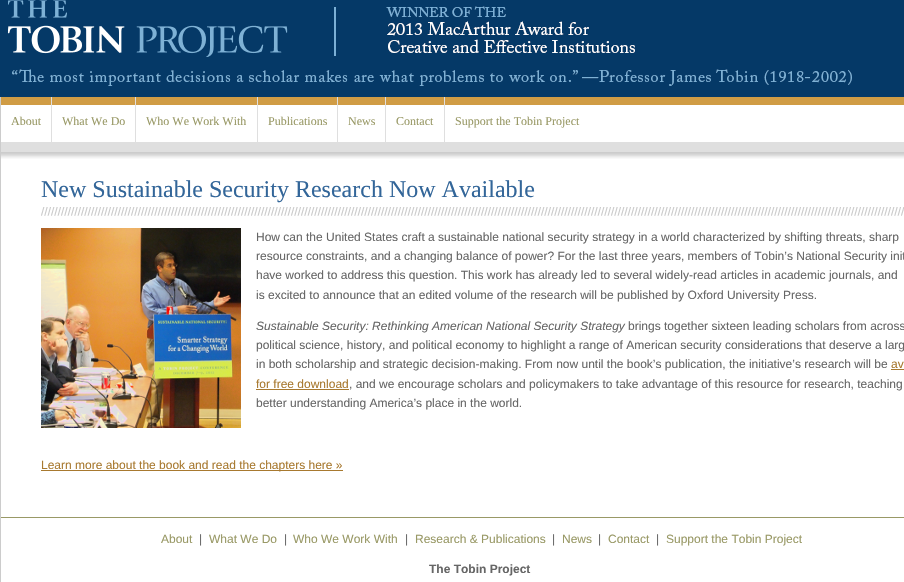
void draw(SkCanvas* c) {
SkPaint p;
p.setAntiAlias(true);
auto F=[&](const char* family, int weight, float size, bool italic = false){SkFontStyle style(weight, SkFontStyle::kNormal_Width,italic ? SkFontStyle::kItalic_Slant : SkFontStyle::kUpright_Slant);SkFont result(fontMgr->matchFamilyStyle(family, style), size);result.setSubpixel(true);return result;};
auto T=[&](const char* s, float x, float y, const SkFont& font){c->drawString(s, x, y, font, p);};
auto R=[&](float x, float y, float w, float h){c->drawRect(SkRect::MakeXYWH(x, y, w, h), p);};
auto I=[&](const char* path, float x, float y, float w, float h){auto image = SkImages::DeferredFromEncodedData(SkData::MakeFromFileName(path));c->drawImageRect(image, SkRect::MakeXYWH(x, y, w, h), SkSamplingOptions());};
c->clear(0xffffffff);
p.setColor(0xff053967);
R(0,0,904,97);
I("1.png",7,0,845,86);
I("2.png",1,97,903,62);
p.setColor(0xffdfdfdf);
R(51,97,1,46);
auto f1 = F("Liberation Serif",400,12);
p.setColor(0xff999966);
T("About",11,125,f1);
p.setColor(0xffdfdfdf);
R(135,97,1,46);
p.setColor(0xff999966);
T("What We Do",62,125,f1);
p.setColor(0xffdfdfdf);
R(257,97,1,46);
p.setColor(0xff999966);
T("Who We Work With",146,125,f1);
p.setColor(0xffdfdfdf);
R(337,97,1,46);
p.setColor(0xff999966);
T("Publications",268,125,f1);
p.setColor(0xffdfdfdf);
R(385,97,1,46);
p.setColor(0xff999966);
T("News",348,125,f1);
p.setColor(0xffdfdfdf);
R(444,97,1,46);
p.setColor(0xff999966);
T("Contact",396,125,f1);
T("Support the Tobin Project",455,125,f1);
p.setColor(0xffcccccc);
R(0,97,1,420);
I("3.png",41,207,863,9);
auto f2 = F("Liberation Serif",400,24);
p.setColor(0xff336699);
T("New Sustainable Security Research Now Available",41,197,f2);
I("4.png",41,228,200,200);
auto f3 = F("Liberation Sans",400,12);
p.setColor(0xff666666);
T("How can the United States craft a sustainable national security strategy in a world characterized by shifting threats, sharp",256,241,f3);
T("resource constraints, and a changing balance of power? For the last three years, members of Tobin’s National Security init",256,260,f3);
T("have worked to address this question. This work has already led to several widely-read articles in academic journals, and",256,279,f3);
T("is excited to announce that an edited volume of the research will be published by Oxford University Press.",256,299,f3);
auto f4 = F("Liberation Sans",400,12,true);
T("Sustainable Security: Rethinking American National Security Strategy",256,330,f4);
T("brings together sixteen leading scholars from across",628,330,f3);
T("political science, history, and political economy to highlight a range of American security considerations that deserve a larg",256,349,f3);
T("in both scholarship and strategic decision-making. From now until the book’s publication, the initiative’s research will be",256,368,f3);
p.setColor(0xffa8792f);
T("av",891,368,f3);
R(891,369,13,1);
T("for free download",256,388,f3);
R(256,389,93,1);
p.setColor(0xff666666);
T(", and we encourage scholars and policymakers to take advantage of this resource for research, teaching",349,388,f3);
T("better understanding America’s place in the world.",256,407,f3);
p.setColor(0xffa8792f);
R(41,470,302,1);
T("Learn more about the book and read the chapters here »",41,469,f3);
p.setColor(0xff999966);
R(0,517,904,1);
p.setColor(0xffcccccc);
R(0,517,1,65);
p.setColor(0xff999966);
T("About",161,543,f3);
p.setColor(0xff666666);
T("|",199,543,f3);
p.setColor(0xff999966);
T("What We Do",209,543,f3);
p.setColor(0xff666666);
T("|",284,543,f3);
p.setColor(0xff999966);
T("Who We Work With",293,543,f3);
p.setColor(0xff666666);
T("|",405,543,f3);
p.setColor(0xff999966);
T("Research & Publications",415,543,f3);
p.setColor(0xff666666);
T("|",552,543,f3);
p.setColor(0xff999966);
T("News",562,543,f3);
p.setColor(0xff666666);
T("|",598,543,f3);
p.setColor(0xff999966);
T("Contact",608,543,f3);
p.setColor(0xff666666);
T("|",656,543,f3);
p.setColor(0xff999966);
T("Support the Tobin Project",666,543,f3);
auto f5 = F("Liberation Sans",700,12);
p.setColor(0xff666666);
T("The Tobin Project",429,573,f5);
}
